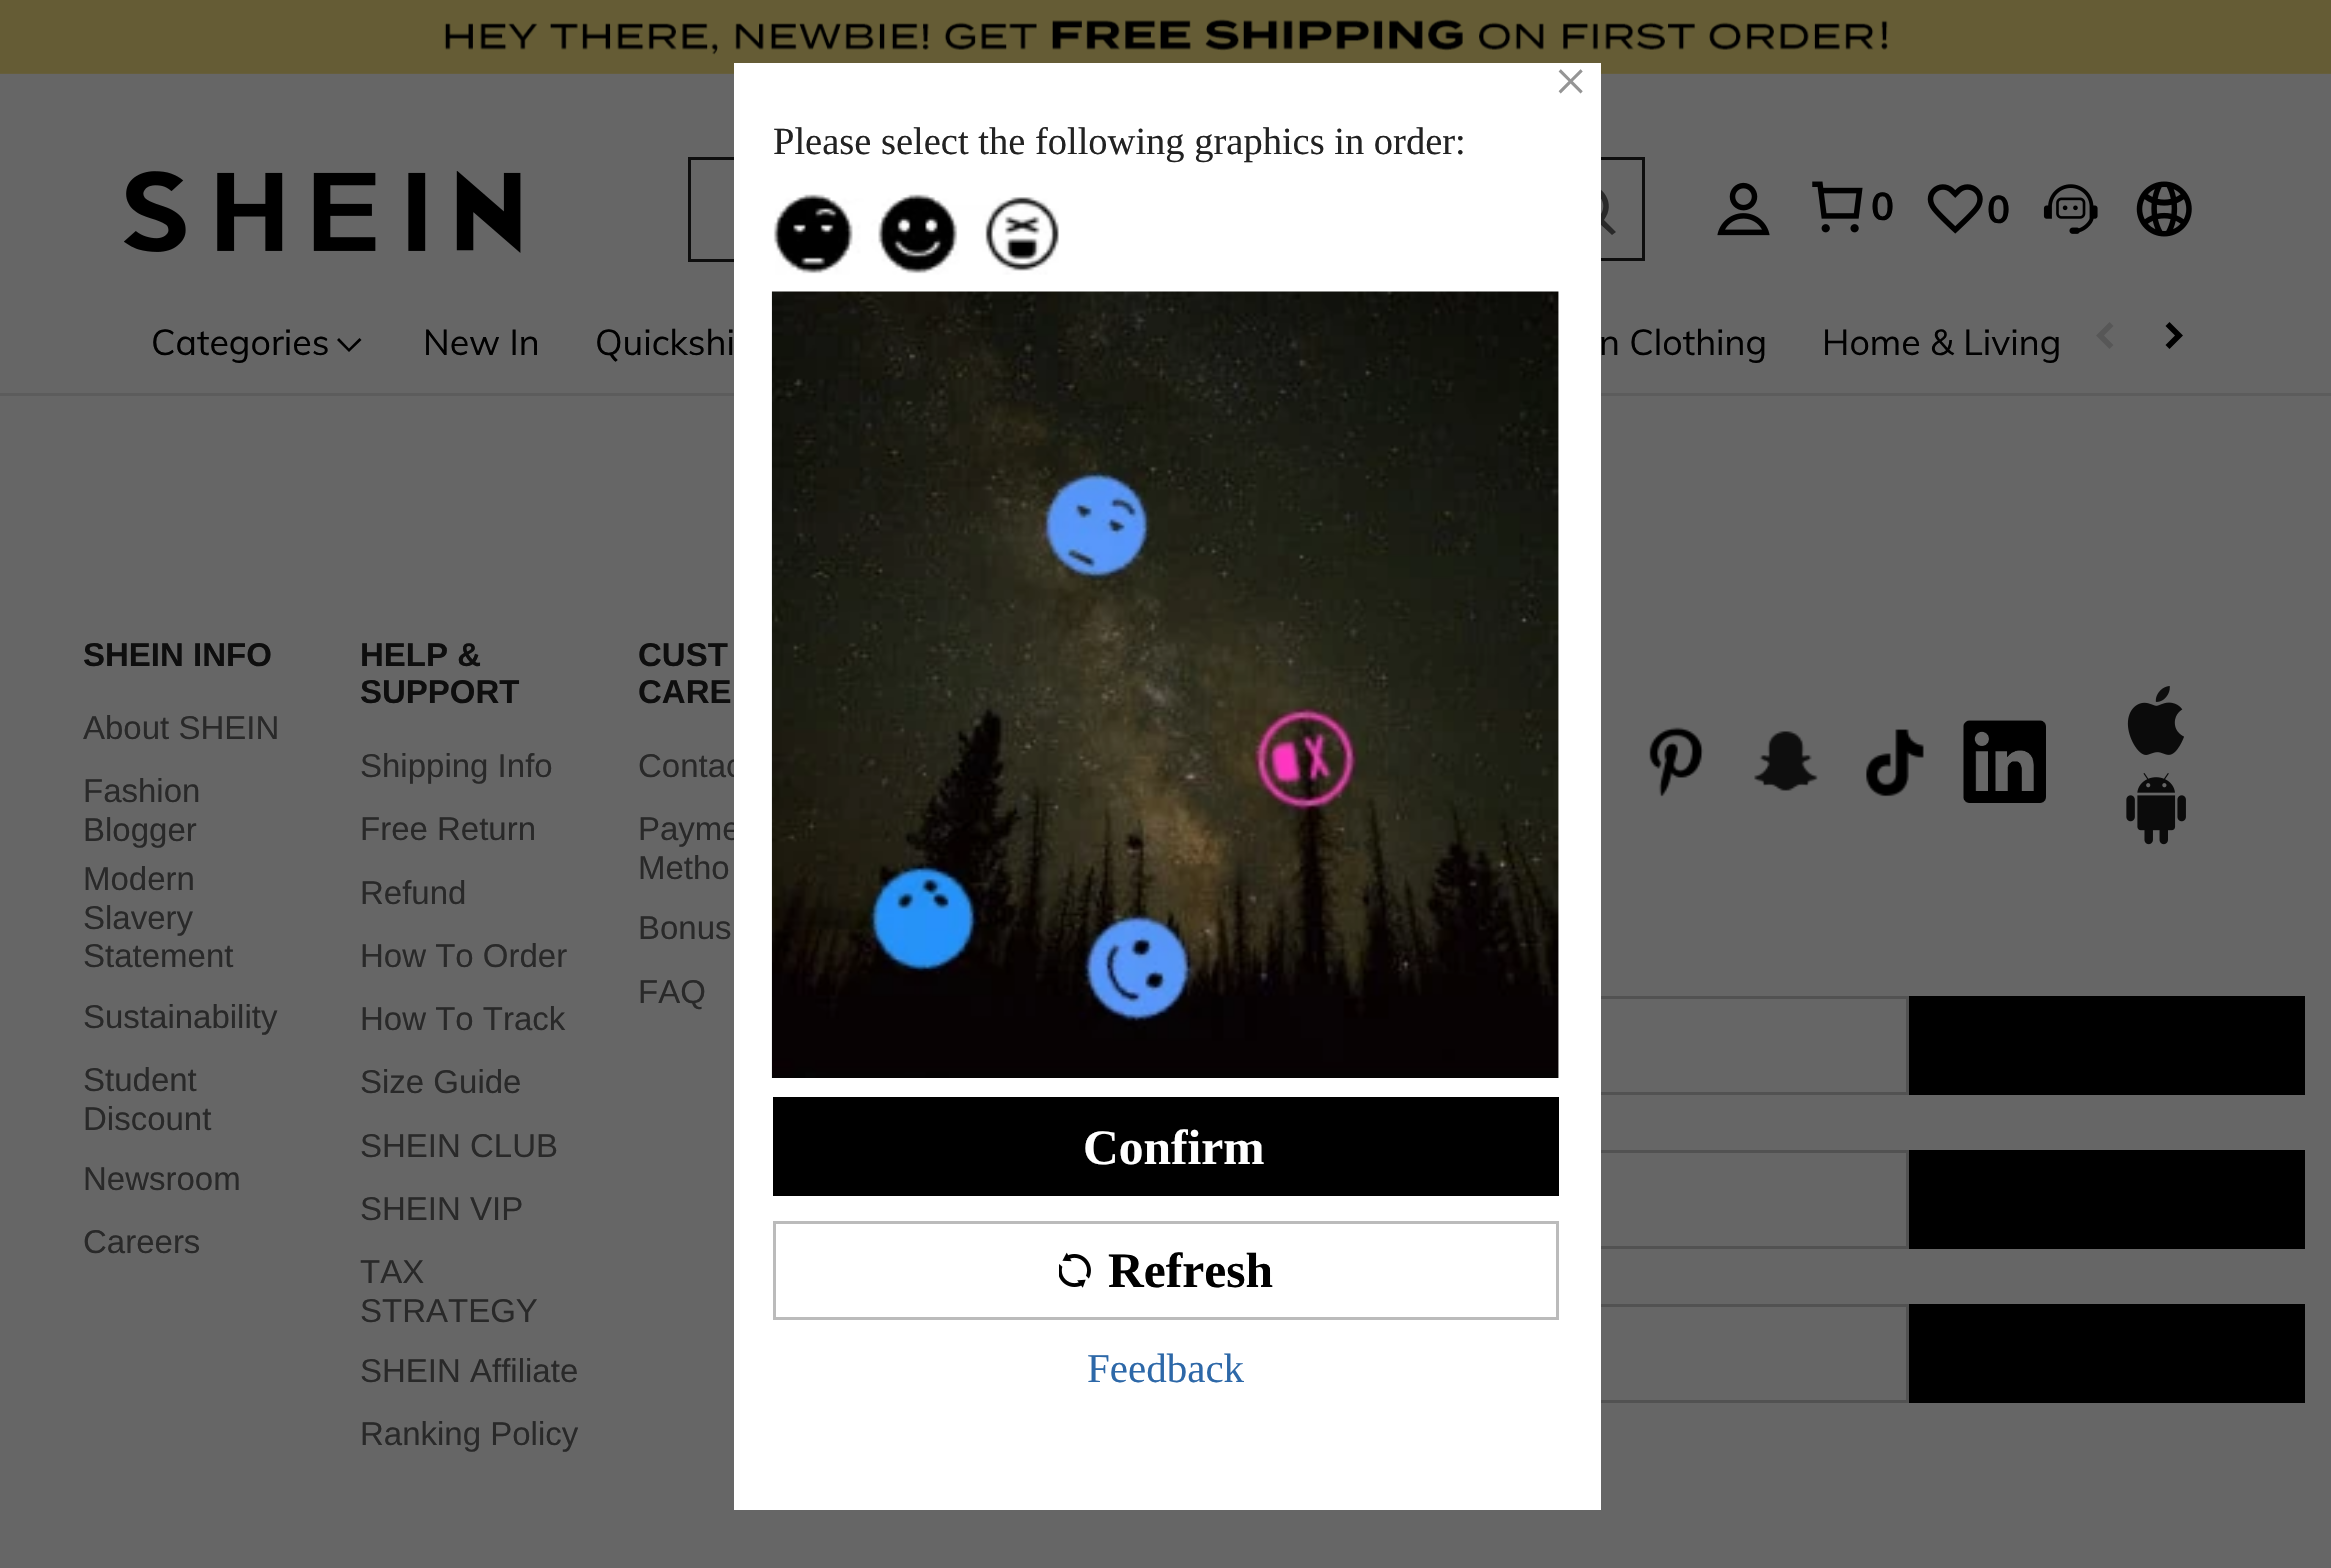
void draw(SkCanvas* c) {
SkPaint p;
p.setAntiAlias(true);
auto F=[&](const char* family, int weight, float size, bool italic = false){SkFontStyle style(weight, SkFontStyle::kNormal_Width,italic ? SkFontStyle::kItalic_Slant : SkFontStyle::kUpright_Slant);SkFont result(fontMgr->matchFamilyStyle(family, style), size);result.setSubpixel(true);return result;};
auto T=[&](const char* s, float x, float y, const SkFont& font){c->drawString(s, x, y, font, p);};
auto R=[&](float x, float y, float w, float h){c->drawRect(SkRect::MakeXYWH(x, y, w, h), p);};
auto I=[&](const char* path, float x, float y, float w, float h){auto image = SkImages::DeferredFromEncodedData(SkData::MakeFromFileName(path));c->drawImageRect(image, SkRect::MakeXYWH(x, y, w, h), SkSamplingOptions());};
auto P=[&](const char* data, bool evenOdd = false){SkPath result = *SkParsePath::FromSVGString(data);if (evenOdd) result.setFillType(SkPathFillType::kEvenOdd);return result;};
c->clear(0xff666666);
I("4.png",0,0,2331,74);
p.setStroke(true);
p.setStrokeWidth(3);
p.setColor(0xff0e0e0e);
c->drawRect(SkRect::MakeXYWH(1536.5,158.5,107,101),p);
p.setStroke(false);
p.setColor(0xff292929);
c->drawPath(P("M1571 191c19-20 50 7 33 29l12 12l-4 3l-12-11c-21 16-48-14-29-33zm27 4c-15-16-38 8-23 23c15 15 39-8 23-23z",true),p);
p.setColor(0xff5c5c5c);
R(0,393,2331,3);
auto f1 = F("Liberation Sans",400,33);
p.setColor(0xff292929);
T("Contac",638,777,f1);
T("Payme",638,840,f1);
p.setStroke(true);
p.setColor(0xff525252);
c->drawRect(SkRect::MakeXYWH(1195.5,997.5,712,96),p);
c->drawRect(SkRect::MakeXYWH(1415.5,1151.5,492,96),p);
c->drawRect(SkRect::MakeXYWH(1415.5,1305.5,492,96),p);
p.setStroke(false);
p.setColor(0xffffffff);
R(734,63,867,1447);
auto f2 = F("Liberation Serif",400,59);
p.setColor(0xff959595);
T("×",1554,101,f2);
auto f3 = F("Liberation Serif",400,38.5);
p.setColor(0xff222222);
T("Please select the following graphics in order:",773,154,f3);
I("1.png",773,194,286,81);
I("2.png",771,291,788,787);
p.setColor(0xff000000);
R(773,1097,786,99);
auto f4 = F("Liberation Serif",700,49.5);
p.setColor(0xffffffff);
T("Confirm",1083,1164,f4);
p.setStroke(true);
p.setColor(0xffbbbbbb);
c->drawRect(SkRect::MakeXYWH(774.5,1222.5,783,96),p);
I("3.png",1059,1252,32,36);
p.setStroke(false);
p.setColor(0xff000000);
T("Refresh",1108,1287,f4);
auto f5 = F("Liberation Serif",400,41);
p.setColor(0xff2d68a8);
T("Feedback",1087,1382,f5);
I("5.png",124,171,397,82);
p.setColor(0xff0e0e0e);
R(688,157,46,3);
R(688,259,46,3);
R(688,157,3,104);
I("6.png",1717,182,53,54);
I("7.png",1812,181,51,52);
auto f6 = F("Muli",700,38.5);
p.setColor(0xff000000);
T("0",1871,220,f6);
I("8.png",1927,184,56,50);
T("0",1987,223,f6);
I("9.png",2043,184,55,50);
I("10.png",2136,181,56,56);
auto f7 = F("Muli",400,35.75);
T("Categories",151,355,f7);
c->drawPath(P("M359.5 338l2 2l-12.5 12l-12-12l2-2l10 10.5z"),p);
T("New In",423,355,f7);
T("Quickshi",595,355,f7);
T("n Clothing",1599,355,f7);
T("Home & Living",1822,355,f7);
p.setColor(0xff575757);
c->drawPath(P("M2109.5 322l4 4l-9.5 9.5l9.5 9.5l-4 4l-13.5-13.5z",true),p);
p.setColor(0xff000000);
c->drawPath(P("M2165.5 326l4-4l13.5 13.5l-13.5 13.5l-4-4l9.5-9.5z",true),p);
auto f8 = F("Liberation Sans",700,33);
p.setColor(0xff0e0e0e);
T("SHEIN INFO",83,666,f8);
p.setColor(0xff292929);
T("About SHEIN",83,739,f1);
T("Fashion",83,802,f1);
T("Blogger",83,841,f1);
T("Modern",83,890,f1);
T("Slavery",83,929,f1);
T("Statement",83,967,f1);
T("Sustainability",83,1028,f1);
T("Student",83,1091,f1);
T("Discount",83,1130,f1);
T("Newsroom",83,1190,f1);
T("Careers",83,1253,f1);
p.setColor(0xff0e0e0e);
T("HELP &",360,666,f8);
T("SUPPORT",360,703,f8);
p.setColor(0xff292929);
T("Shipping Info",360,777,f1);
T("Free Return",360,840,f1);
T("Refund",360,904,f1);
T("How To Order",360,967,f1);
T("How To Track",360,1030,f1);
T("Size Guide",360,1093,f1);
T("SHEIN CLUB",360,1157,f1);
T("SHEIN VIP",360,1220,f1);
T("TAX",360,1283,f1);
T("STRATEGY",360,1322,f1);
T("SHEIN Affiliate",360,1382,f1);
T("Ranking Policy",360,1445,f1);
p.setColor(0xff0e0e0e);
T("CUST",638,666,f8);
T("CARE",638,703,f8);
p.setColor(0xff292929);
T("Metho",638,879,f1);
T("Bonus",638,939,f1);
T("FAQ",638,1003,f1);
I("11.png",1649,727,55,70);
I("12.png",1754,731,64,60);
I("13.png",1866,729,58,68);
I("14.png",1963,720,83,83);
I("15.png",2127,686,57,69);
I("16.png",2126,773,60,72);
p.setColor(0xff000000);
R(1909,996,396,99);
R(1909,1150,396,99);
R(1909,1304,396,99);
}
